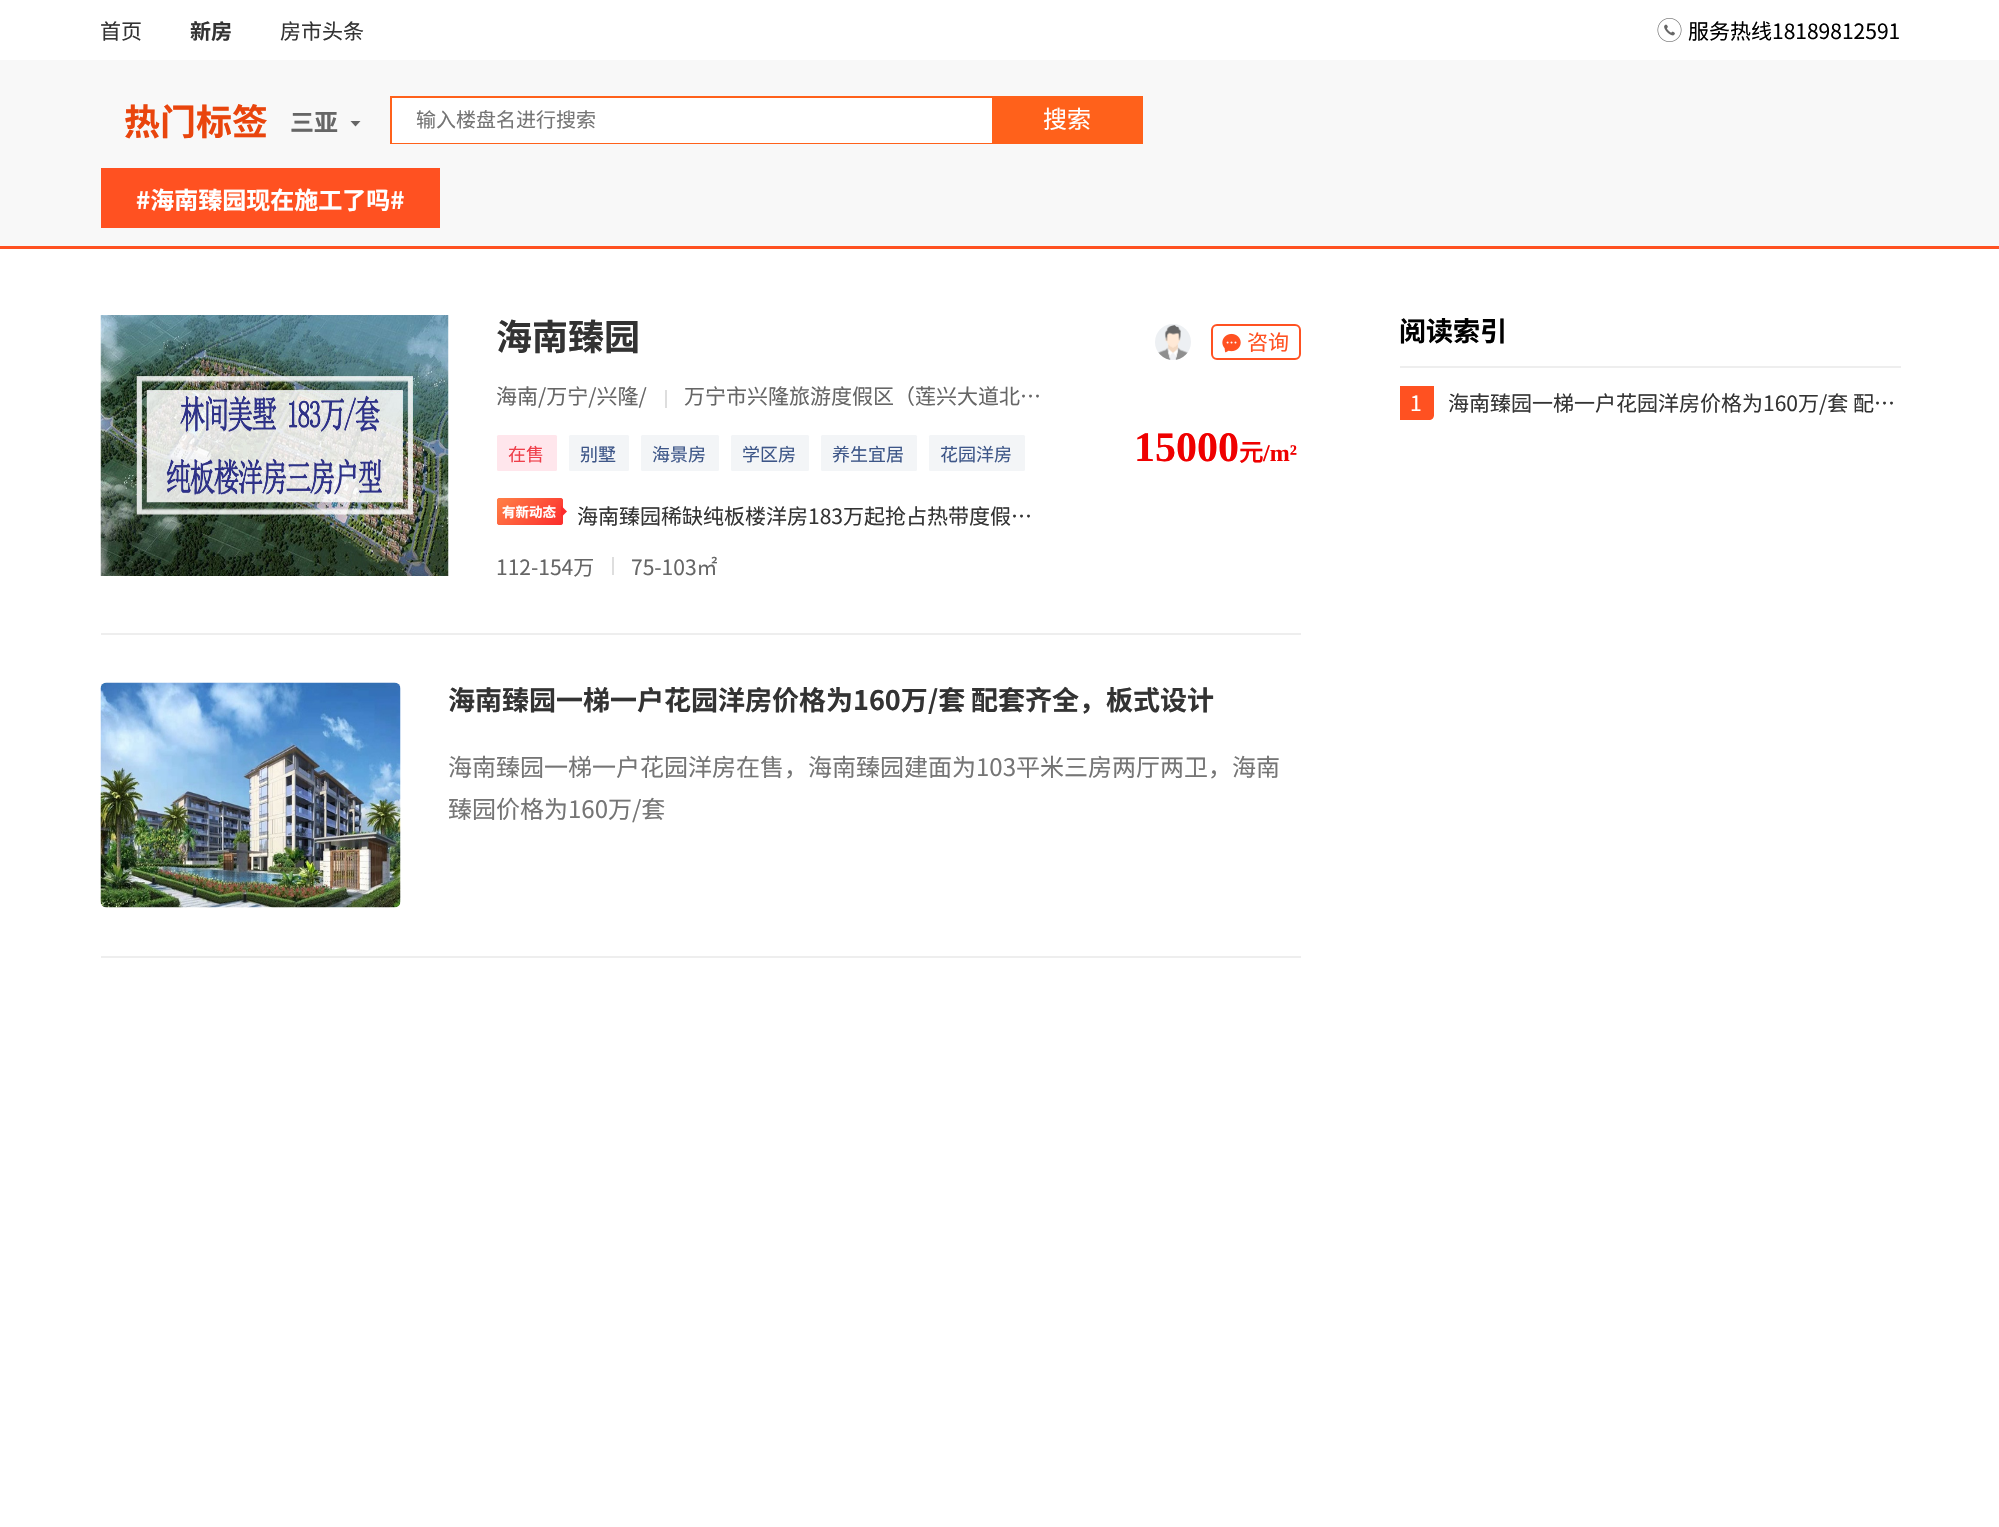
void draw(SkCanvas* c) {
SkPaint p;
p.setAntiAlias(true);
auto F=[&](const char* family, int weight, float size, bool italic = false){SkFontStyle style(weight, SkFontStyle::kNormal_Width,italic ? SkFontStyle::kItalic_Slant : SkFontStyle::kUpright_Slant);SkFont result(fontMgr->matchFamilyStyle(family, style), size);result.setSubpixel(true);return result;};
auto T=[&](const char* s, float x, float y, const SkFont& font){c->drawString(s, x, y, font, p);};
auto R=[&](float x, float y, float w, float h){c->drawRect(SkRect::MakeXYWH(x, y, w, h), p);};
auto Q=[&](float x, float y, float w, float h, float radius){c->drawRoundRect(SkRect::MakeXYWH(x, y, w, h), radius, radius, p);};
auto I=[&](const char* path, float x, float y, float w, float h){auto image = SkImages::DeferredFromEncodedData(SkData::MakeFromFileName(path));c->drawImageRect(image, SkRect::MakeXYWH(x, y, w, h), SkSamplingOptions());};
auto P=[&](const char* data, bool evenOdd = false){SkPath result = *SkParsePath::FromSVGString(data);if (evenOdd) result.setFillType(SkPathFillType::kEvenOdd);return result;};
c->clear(0xffffffff);
auto f1 = F("Noto Sans CJK SC",400,21);
p.setColor(0xff333333);
T("首页",100,39,f1);
auto f2 = F("Noto Sans CJK SC",700,21);
T("新房",190,39,f2);
T("房市头条",280,39,f1);
I("1.png",1657,18,25,24);
p.setColor(0xff000000);
T("服务热线18189812591",1688,39,f1);
p.setColor(0xfff8f8f8);
R(0,60,1999,186);
auto f3 = F("Noto Sans CJK SC",700,36);
p.setColor(0xffe9450d);
T("热门标签",124,135,f3);
auto f4 = F("Noto Sans CJK SC",700,24);
p.setColor(0xff666666);
T("三亚",290,131,f4);
c->drawPath(P("M360.5 121l-5 5.5l-5-5.5z"),p);
p.setStroke(true);
p.setStrokeWidth(2);
p.setColor(0xffff611b);
c->drawRect(SkRect::MakeXYWH(391,97,751,46),p);
p.setStroke(false);
p.setColor(0xffffffff);
R(392,98,600,45);
auto f5 = F("Noto Sans CJK SC",400,20);
p.setColor(0xff757575);
T("输入楼盘名进行搜索",416,127,f5);
p.setColor(0xffff611b);
R(992,98,149,44);
auto f6 = F("Noto Sans CJK SC",400,24);
p.setColor(0xffffffff);
T("搜索",1043,128,f6);
p.setColor(0xffff5121);
R(0,246,1999,3);
R(101,168,339,60);
p.setColor(0xffffffff);
T("#海南臻园现在施工了吗#",136,209,f4);
p.setColor(0xffeeeeee);
R(101,633,1200,2);
I("2.png",100,315,349,261);
p.setColor(0xff333333);
T("海南臻园",496,350,f3);
I("3.png",1155,324,36,36);
p.setStroke(true);
p.setColor(0xffff5121);
c->drawRoundRect(SkRect::MakeXYWH(1212,325,88,34),5,5,p);
I("4.png",1222,333,19,20);
p.setStroke(false);
T("咨询",1247,350,f1);
p.setColor(0xff666666);
T("海南/万宁/兴隆/",496,404,f1);
p.setColor(0xffdedede);
R(665,390,2,18);
p.setColor(0xff666666);
T("万宁市兴隆旅游度假区（莲兴大道北…",684,404,f1);
p.setColor(0xffffe6ec);
Q(497,435,60,36,1.5);
auto f7 = F("Noto Sans CJK SC",400,18);
p.setColor(0xffef3e4a);
T("在售",508,461,f7);
p.setColor(0xfff3f5f7);
Q(569,435,60,36,1.5);
p.setColor(0xff3d5688);
T("别墅",580,461,f7);
p.setColor(0xfff3f5f7);
Q(641,435,78,36,1.5);
p.setColor(0xff3d5688);
T("海景房",652,461,f7);
p.setColor(0xfff3f5f7);
Q(731,435,78,36,1.5);
p.setColor(0xff3d5688);
T("学区房",742,461,f7);
p.setColor(0xfff3f5f7);
Q(821,435,96,36,1.5);
p.setColor(0xff3d5688);
T("养生宜居",832,461,f7);
p.setColor(0xfff3f5f7);
Q(929,435,96,36,1.5);
p.setColor(0xff3d5688);
T("花园洋房",940,461,f7);
auto f8 = F("Liberation Serif",700,42);
p.setColor(0xffef0000);
T("15000",1134,461,f8);
auto f9 = F("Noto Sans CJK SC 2",700,24);
T("元",1239,461,f9);
auto f10 = F("Liberation Serif",700,24);
T("/m²",1263,461,f10);
p.setColor(0xfffc2c2c);
Q(497,498,66,27,3);
{
const SkColor colors[] = {0xf0ff8648,0xf5fc2c2c};
const float stops[] = {0,1};
const SkPoint ends[] = {{506,488}, {553,535}};
p.setShader(SkGradientShader::MakeLinear(ends, colors, stops, 2, SkTileMode::kClamp));
p.setAlpha(255);
}
Q(497,498,66,27,3);
auto f11 = F("Noto Sans CJK SC",700,13.5);
p.setShader(nullptr);
p.setColor(0xffffffff);
T("有新动态",502,517,f11);
p.setColor(0xfffc2c2c);
c->drawPath(P("M561 517.5v-12l6 6z"),p);
p.setColor(0xff333333);
T("海南臻园稀缺纯板楼洋房183万起抢占热带度假…",577,524,f1);
p.setColor(0xff666666);
T("112-154万",496,575,f1);
p.setColor(0xffdedede);
R(612,557,2,18);
p.setColor(0xff666666);
T("75-103㎡",631,575,f1);
p.setColor(0xffeeeeee);
R(101,956,1200,2);
I("5.png",100,682,301,226);
c->save();
c->clipRect(SkRect::MakeXYWH(449,683,852,31));
auto f12 = F("Noto Sans CJK SC",700,27);
p.setColor(0xff333333);
T("海南臻园一梯一户花园洋房价格为160万/套",448,710,f12);
c->restore();
T("配套齐全，板式设计",971,710,f12);
p.setColor(0xff757575);
T("海南臻园一梯一户花园洋房在售，海南臻园建面为103平米三房两厅两卫，海南",448,776,f6);
c->save();
c->clipRect(SkRect::MakeXYWH(449,744,852,84));
T("臻园价格为160万/套",448,818,f6);
c->restore();
p.setColor(0xffeeeeee);
R(1400,366,501,2);
p.setColor(0xff000000);
T("阅读索引",1399,341,f12);
p.setColor(0xffff5121);
c->drawPath(P("M1400 386h34v29c0 3-2 5-5 5h-29z"),p);
p.setColor(0xffffffff);
T("1",1410,411,f1);
p.setColor(0xff333333);
T("海南臻园一梯一户花园洋房价格为160万/套 配…",1448,411,f1);
}
